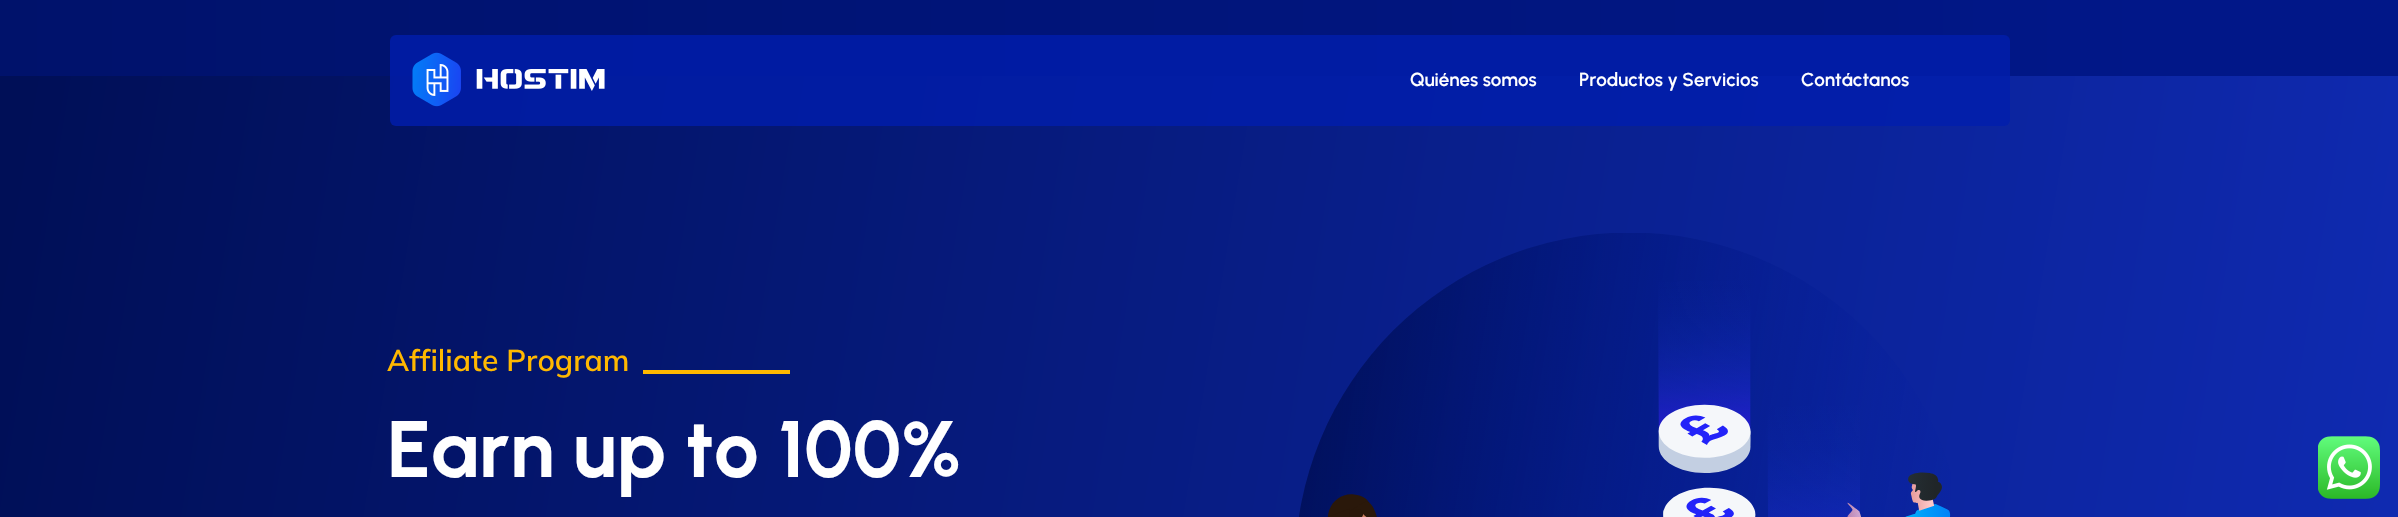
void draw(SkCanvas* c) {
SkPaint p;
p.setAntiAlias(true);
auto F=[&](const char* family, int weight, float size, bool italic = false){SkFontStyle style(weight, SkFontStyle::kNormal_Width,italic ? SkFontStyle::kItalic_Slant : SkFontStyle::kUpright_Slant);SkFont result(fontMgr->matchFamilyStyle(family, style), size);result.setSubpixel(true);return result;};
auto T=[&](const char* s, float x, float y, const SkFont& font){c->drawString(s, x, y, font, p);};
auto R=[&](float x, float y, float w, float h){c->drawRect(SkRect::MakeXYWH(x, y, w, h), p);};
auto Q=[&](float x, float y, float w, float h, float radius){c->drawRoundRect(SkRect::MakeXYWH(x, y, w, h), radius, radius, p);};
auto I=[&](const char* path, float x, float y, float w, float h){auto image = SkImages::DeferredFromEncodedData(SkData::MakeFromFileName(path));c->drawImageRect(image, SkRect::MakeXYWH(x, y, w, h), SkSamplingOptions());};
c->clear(0xffffffff);
{
const SkColor colors[] = {0xff011788,0xff00126b};
const float stops[] = {.1,1};
const SkPoint ends[] = {{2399,37}, {0,39}};
p.setShader(SkGradientShader::MakeLinear(ends, colors, stops, 2, SkTileMode::kClamp));
p.setAlpha(255);
}
R(0,0,2398,76);
{
const SkColor colors[] = {0xff0f2ab1,0xff000f57};
const float stops[] = {.03,.99};
const SkPoint ends[] = {{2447,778}, {-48,369}};
p.setShader(SkGradientShader::MakeLinear(ends, colors, stops, 2, SkTileMode::kClamp));
p.setAlpha(255);
}
R(0,76,2398,441);
p.setShader(nullptr);
p.setColor(0xcc001dac);
Q(390,35,1620,91,6);
I("1.png",412,52,193,55);
auto f1 = F("Urbanist",600,18.75);
p.setColor(0xffffffff);
T("Quiénes somos",1410,86,f1);
T("Productos y Servicios",1579,86,f1);
T("Contáctanos",1801,86,f1);
auto f2 = F("Mulish",600,30);
p.setColor(0xffffb800);
T("Affiliate Program",387,371,f2);
R(643,370,147,4);
auto f3 = F("Urbanist",700,80);
p.setColor(0xffffffff);
T("Earn up to 100%",387,477,f3);
I("2.png",1299,233,652,284);
I("3.png",2318,436,62,63);
}
